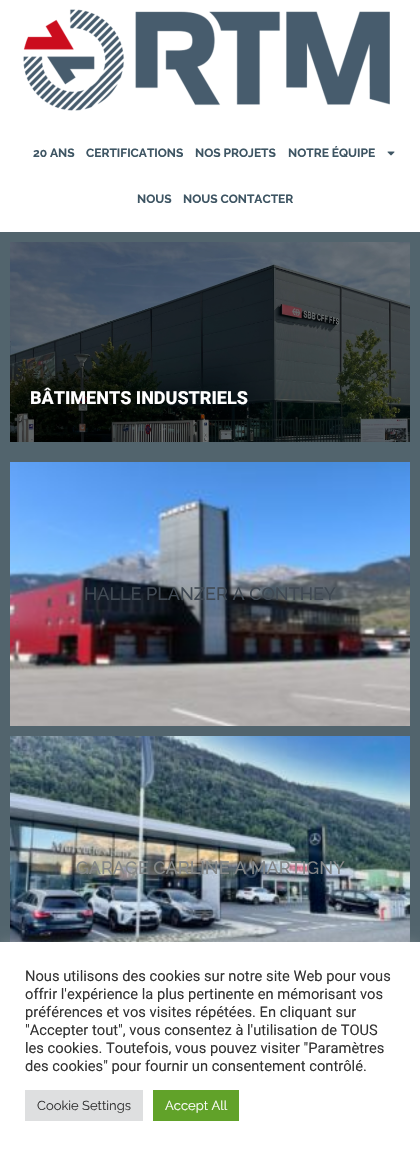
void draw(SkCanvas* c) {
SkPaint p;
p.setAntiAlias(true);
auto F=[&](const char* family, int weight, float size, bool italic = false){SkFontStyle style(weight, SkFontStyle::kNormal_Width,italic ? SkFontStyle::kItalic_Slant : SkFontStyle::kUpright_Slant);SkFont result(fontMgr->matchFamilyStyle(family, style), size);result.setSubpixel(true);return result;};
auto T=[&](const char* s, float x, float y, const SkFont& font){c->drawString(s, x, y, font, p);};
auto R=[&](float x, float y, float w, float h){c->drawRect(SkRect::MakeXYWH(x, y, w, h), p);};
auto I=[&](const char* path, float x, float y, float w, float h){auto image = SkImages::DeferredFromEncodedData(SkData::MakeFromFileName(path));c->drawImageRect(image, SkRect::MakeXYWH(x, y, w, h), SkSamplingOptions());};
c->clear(0xffffffff);
I("1.png",23,9,367,102);
auto f1 = F("Raleway",700,12);
p.setColor(0xff3e5563);
T("20 ANS",33,157,f1);
T("CERTIFICATIONS",86,157,f1);
T("NOS PROJETS",195,157,f1);
T("NOTRE ÉQUIPE",288,157,f1);
I("2.png",387,151,8,5);
T("NOUS",137,203,f1);
T("NOUS CONTACTER",183,203,f1);
p.setColor(0xff52646d);
R(0,232,420,710);
I("3.png",10,242,400,200);
auto f2 = F("Roboto",800,18);
p.setColor(0xffffffff);
T("BÂTIMENTS INDUSTRIELS",30,404,f2);
I("4.png",10,462,400,264);
auto f3 = F("Raleway",500,18);
p.setColor(0xff404953);
T("HALLE PLANZER A CONTHEY",84,600,f3);
I("5.png",10,736,400,206);
p.setColor(0xff838687);
T("GARAGE CARLINE A MARTIGNY",76,874,f3);
p.setColor(0x4dacabab);
p.setMaskFilter(SkMaskFilter::MakeBlur(kNormal_SkBlurStyle, 5));
c->drawRect(SkRect::MakeXYWH(0,941,420,209),p);
p.setMaskFilter(nullptr);
p.setColor(0xffffffff);
R(0,942,420,209);
auto f4 = F("Roboto",400,14.7);
p.setColor(0xff333333);
T("Nous utilisons des cookies sur notre site Web pour vous",25,981,f4);
T("offrir l'expérience la plus pertinente en mémorisant vos",25,999,f4);
T("préférences et vos visites répétées. En cliquant sur",25,1017,f4);
T("\"Accepter tout\", vous consentez à l'utilisation de TOUS",25,1035,f4);
T("les cookies. Toutefois, vous pouvez visiter \"Paramètres",25,1053,f4);
T("des cookies\" pour fournir un consentement contrôlé.",25,1071,f4);
p.setColor(0xffdedfe0);
R(25,1090,118,31);
auto f5 = F("Raleway",400,13);
p.setColor(0xff333333);
T("Cookie Settings",37,1110,f5);
p.setColor(0xff61a229);
R(153,1090,86,31);
p.setColor(0xffffffff);
T("Accept All",165,1110,f5);
}
